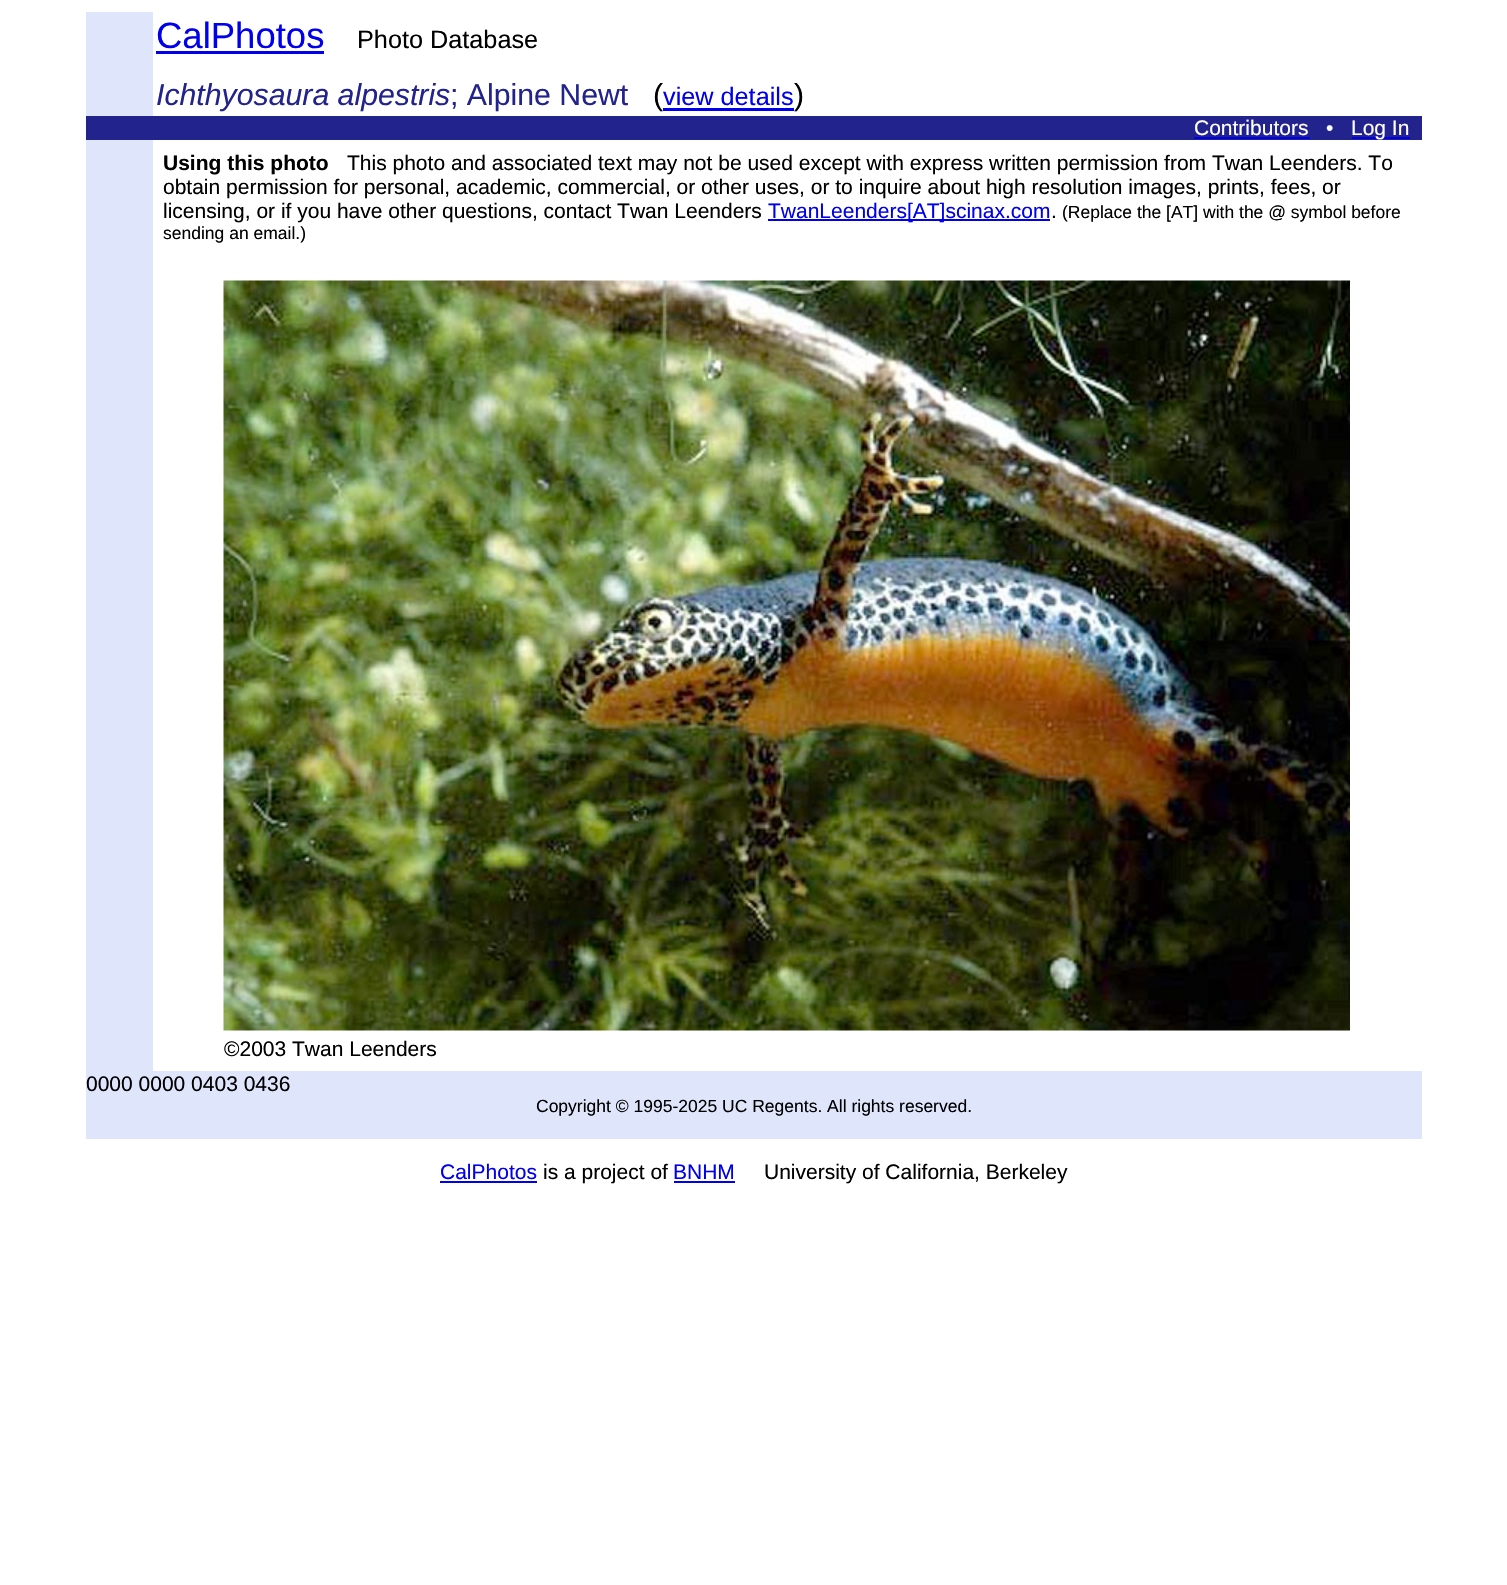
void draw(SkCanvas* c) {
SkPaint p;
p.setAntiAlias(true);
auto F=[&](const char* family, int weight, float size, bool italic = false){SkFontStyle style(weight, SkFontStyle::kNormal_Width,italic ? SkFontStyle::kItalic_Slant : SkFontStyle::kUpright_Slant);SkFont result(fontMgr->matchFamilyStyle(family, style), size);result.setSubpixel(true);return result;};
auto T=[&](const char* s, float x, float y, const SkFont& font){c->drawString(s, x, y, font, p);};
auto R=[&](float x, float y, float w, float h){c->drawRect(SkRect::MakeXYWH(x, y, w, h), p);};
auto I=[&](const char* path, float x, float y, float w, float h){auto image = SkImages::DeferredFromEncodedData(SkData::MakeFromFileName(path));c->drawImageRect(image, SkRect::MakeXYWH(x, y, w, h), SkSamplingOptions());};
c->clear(0xffffffff);
p.setColor(0xffdfe5fa);
R(86,12,67,104);
auto f1 = F("Liberation Sans",400,36.5);
p.setColor(0xff0000ee);
T("CalPhotos",156,48,f1);
R(156,51,168,3);
auto f2 = F("Liberation Sans",400,25.25);
p.setColor(0xff000000);
T("Photo Database",357,48,f2);
auto f3 = F("Liberation Sans",400,30.25,true);
p.setColor(0xff23238e);
T("Ichthyosaura alpestris",156,105,f3);
auto f4 = F("Liberation Sans",400,30.25);
T("; Alpine Newt",450,105,f4);
p.setColor(0xff000000);
T("(",653,105,f4);
p.setColor(0xff0000ee);
R(663,108,131,3);
T("view details",663,105,f2);
p.setColor(0xff000000);
T(")",794,105,f4);
p.setColor(0xff23238e);
R(86,116,1336,24);
auto f5 = F("Liberation Sans",400,21);
p.setColor(0xffffffff);
T("Contributors",1194,135,f5);
p.setColor(0xff0000ee);
R(1194,137,116,2);
p.setColor(0xffffffff);
T("•",1326,135,f5);
p.setColor(0xff0000ee);
R(1352,137,58,2);
p.setColor(0xffffffff);
T("Log In",1351,135,f5);
p.setColor(0xffdfe5fa);
R(86,140,67,931);
auto f6 = F("Liberation Sans",700,21);
p.setColor(0xff000000);
T("Using this photo",163,170,f6);
T("This photo and associated text may not be used except with express written permission from Twan Leenders. To",347,170,f5);
T("obtain permission for personal, academic, commercial, or other uses, or to inquire about high resolution images, prints, fees, or",163,194,f5);
T("licensing, or if you have other questions, contact Twan Leenders",163,218,f5);
p.setColor(0xff0000ee);
R(768,219,282,2);
T("TwanLeenders[AT]scinax.com",768,218,f5);
p.setColor(0xff000000);
T(".",1051,218,f5);
auto f7 = F("Liberation Sans",400,17.5);
T("(Replace the [AT] with the @ symbol before",1062,218,f7);
T("sending an email.)",163,239,f7);
I("1.png",223,280,1127,751);
T("©2003 Twan Leenders",224,1056,f5);
p.setColor(0xffdfe5fa);
R(86,1071,1336,68);
p.setColor(0xff000000);
T("0000 0000 0403 0436",86,1091,f5);
T("Copyright © 1995-2025 UC Regents. All rights reserved.",536,1112,f7);
p.setColor(0xff0000ee);
T("CalPhotos",440,1179,f5);
R(440,1181,97,2);
p.setColor(0xff000000);
T("is a project of",543,1179,f5);
p.setColor(0xff0000ee);
T("BNHM",673,1179,f5);
R(674,1181,61,2);
p.setColor(0xff000000);
T("University of California, Berkeley",764,1179,f5);
}
